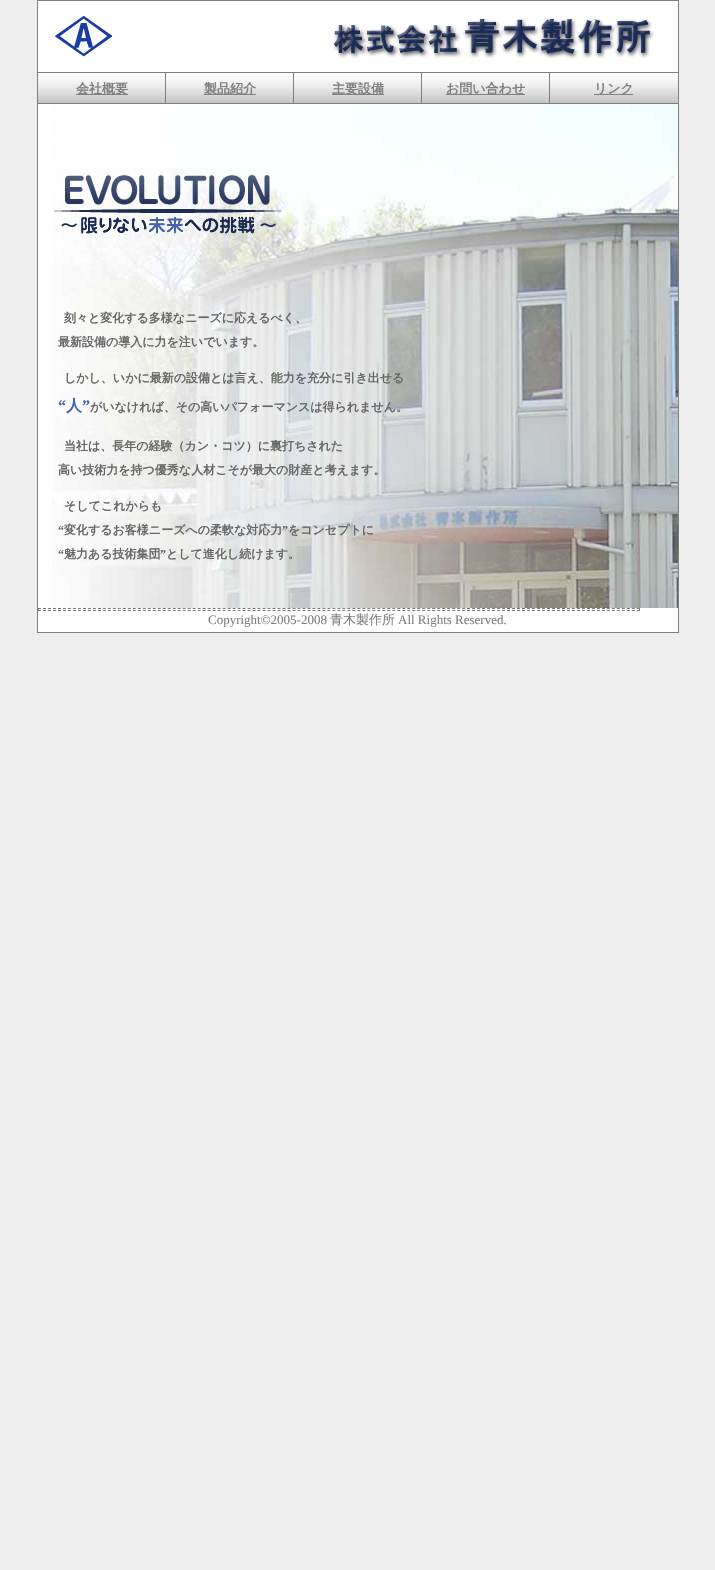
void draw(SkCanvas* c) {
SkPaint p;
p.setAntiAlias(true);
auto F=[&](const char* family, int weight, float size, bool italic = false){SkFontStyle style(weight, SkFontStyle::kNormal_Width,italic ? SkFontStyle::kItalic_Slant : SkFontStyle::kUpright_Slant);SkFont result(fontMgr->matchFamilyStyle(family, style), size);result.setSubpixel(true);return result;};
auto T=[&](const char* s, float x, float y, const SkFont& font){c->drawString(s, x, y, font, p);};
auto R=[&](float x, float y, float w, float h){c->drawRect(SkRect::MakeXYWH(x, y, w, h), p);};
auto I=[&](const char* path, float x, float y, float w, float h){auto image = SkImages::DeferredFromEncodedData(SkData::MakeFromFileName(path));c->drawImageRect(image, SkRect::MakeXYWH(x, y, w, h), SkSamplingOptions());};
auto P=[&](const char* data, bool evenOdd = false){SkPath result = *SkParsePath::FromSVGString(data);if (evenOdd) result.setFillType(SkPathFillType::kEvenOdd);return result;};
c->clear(0xffeeeeee);
p.setStroke(true);
p.setStrokeWidth(1);
p.setColor(0xff807f7f);
c->drawRect(SkRect::MakeXYWH(37.5,.5,641,632),p);
p.setStroke(false);
p.setColor(0xffffffff);
R(38,1,640,631);
I("1.png",55,16,57,41);
I("2.png",333,18,321,41);
I("3.png",38,72,128,32);
p.setColor(0xff807f7f);
R(76,94,52,1);
auto f1 = F("WenQuanYi Zen Hei",700,13);
T("会社概要",76,93,f1);
I("3.png",166,72,128,32);
R(204,94,52,1);
T("製品紹介",204,93,f1);
I("3.png",294,72,128,32);
R(332,94,52,1);
T("主要設備",332,93,f1);
I("3.png",422,72,128,32);
R(446,94,79,1);
T("お問い合わせ",446,93,f1);
I("4.png",550,72,128,32);
R(594,94,39,1);
T("リンク",594,93,f1);
I("5.png",52,104,626,202);
I("6.png",52,306,626,302);
auto f2 = F("WenQuanYi Zen Hei",700,12);
p.setColor(0xff666666);
T("刻々と変化する多様なニーズに応えるべく、",64,322,f2);
T("最新設備の導入に力を注いでいます。",58,346,f2);
T("しかし、いかに最新の設備とは言え、能力を充分に引き出せる",64,382,f2);
auto f3 = F("Liberation Serif",700,16);
p.setColor(0xff4361b2);
T("“",58,411,f3);
auto f4 = F("WenQuanYi Zen Hei",700,16);
T("人",66,411,f4);
T("”",82,411,f3);
p.setColor(0xff666666);
T("がいなければ、その高いパフォーマンスは得られません。",90,411,f2);
T("当社は、長年の経験（カン・コツ）に裏打ちされた",64,450,f2);
T("高い技術力を持つ優秀な人材こそが最大の財産と考えます。",58,474,f2);
T("そしてこれからも",64,510,f2);
auto f5 = F("Liberation Serif",700,12);
T("“",58,534,f5);
T("変化するお客様ニーズへの柔軟な対応力",64,534,f2);
T("”",282,534,f5);
T("をコンセプトに",288,534,f2);
T("“",58,558,f5);
T("魅力ある技術集団",64,558,f2);
T("”",160,558,f5);
T("として進化し続けます。",166,558,f2);
p.setStroke(true);
p.setColor(0xff807f7f);
p.setPathEffect(SkDashPathEffect::Make({{3,1.99f}}, 0));
c->drawPath(P("M38 608.5h602"),p);
p.setPathEffect(nullptr);
p.setStroke(false);
R(639,608,1,3);
p.setStroke(true);
p.setPathEffect(SkDashPathEffect::Make({{3,1.99f}}, 0));
c->drawPath(P("M38 610.5h602"),p);
p.setPathEffect(nullptr);
p.setStroke(false);
R(38,608,1,3);
auto f6 = F("Liberation Serif",400,13);
T("Copyright©2005-2008",208,624,f6);
auto f7 = F("WenQuanYi Zen Hei",500,13);
T("青木製作所",330,624,f7);
T("All Rights Reserved.",398,624,f6);
}
